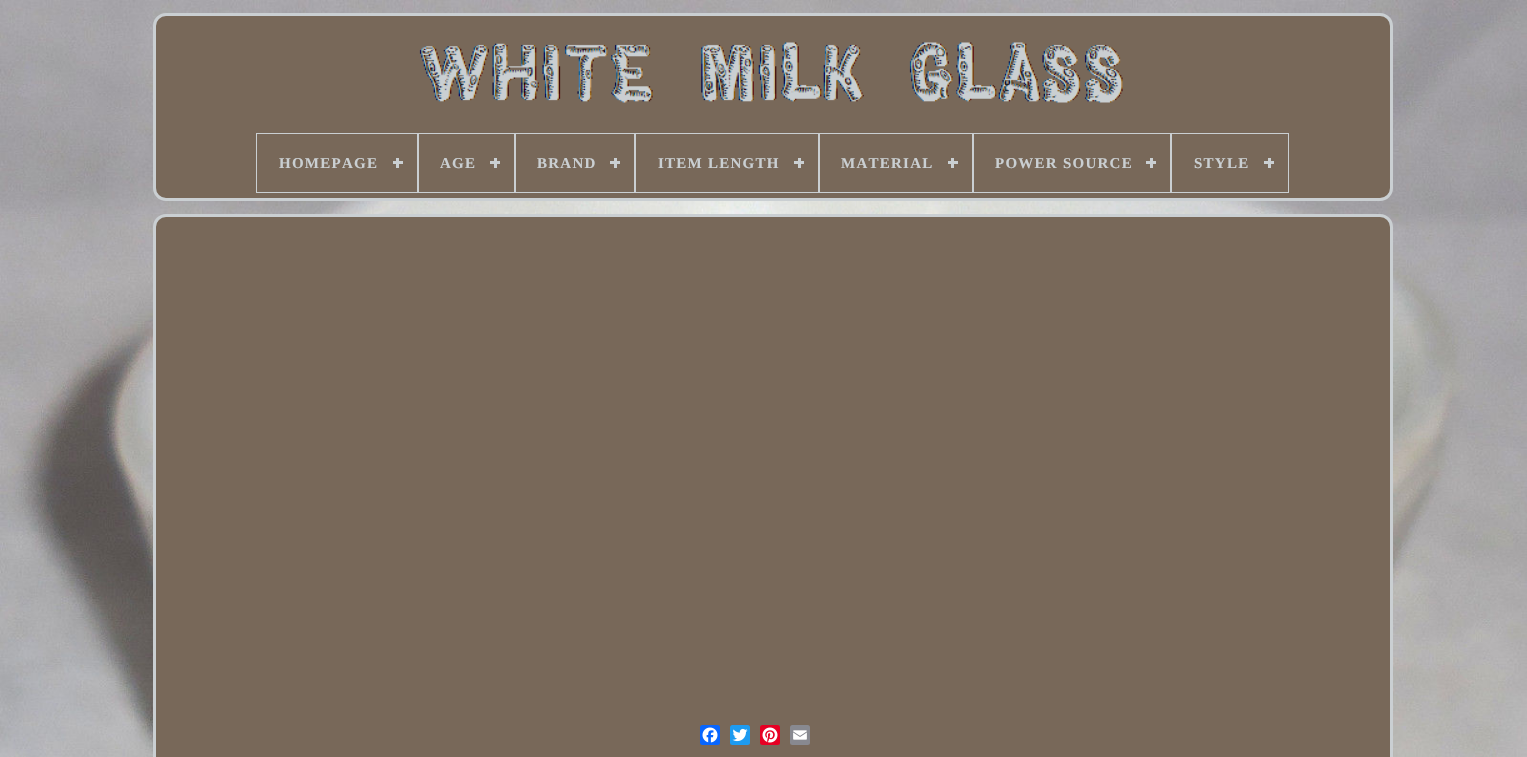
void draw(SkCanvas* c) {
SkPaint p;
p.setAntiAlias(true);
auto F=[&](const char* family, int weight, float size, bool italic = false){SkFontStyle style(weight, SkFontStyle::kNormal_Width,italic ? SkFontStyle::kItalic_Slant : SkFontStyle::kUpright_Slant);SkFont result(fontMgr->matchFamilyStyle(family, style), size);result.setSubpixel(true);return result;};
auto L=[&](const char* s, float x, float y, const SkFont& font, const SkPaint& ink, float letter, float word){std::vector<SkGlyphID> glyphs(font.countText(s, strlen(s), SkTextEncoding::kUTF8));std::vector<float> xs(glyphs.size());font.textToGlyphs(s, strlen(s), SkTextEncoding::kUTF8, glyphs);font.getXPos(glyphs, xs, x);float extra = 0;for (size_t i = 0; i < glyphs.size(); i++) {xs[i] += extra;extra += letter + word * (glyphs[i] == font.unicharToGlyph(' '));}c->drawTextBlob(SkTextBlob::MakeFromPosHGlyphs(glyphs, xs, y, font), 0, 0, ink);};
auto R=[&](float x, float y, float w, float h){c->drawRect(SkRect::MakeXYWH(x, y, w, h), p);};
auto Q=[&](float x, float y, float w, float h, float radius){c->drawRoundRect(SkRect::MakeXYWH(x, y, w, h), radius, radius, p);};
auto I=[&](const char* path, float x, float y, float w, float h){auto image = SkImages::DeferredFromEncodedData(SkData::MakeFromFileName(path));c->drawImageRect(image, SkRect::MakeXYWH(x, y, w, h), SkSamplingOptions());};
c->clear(0xffffffff);
I("1.png",0,0,1527,757);
p.setColor(0xff786859);
c->drawRoundRect(SkRect::MakeXYWH(154.5,14.5,1237,185),11.5,11.5,p);
p.setStroke(true);
p.setStrokeWidth(3);
p.setColor(0xffcacfd2);
c->drawRoundRect(SkRect::MakeXYWH(154.5,14.5,1237,185),11.5,11.5,p);
I("2.png",419,42,704,61);
p.setStrokeWidth(1);
c->drawRect(SkRect::MakeXYWH(256.5,133.5,161,59),p);
auto f1 = F("Liberation Serif",700,15);
p.setStroke(false);
L("HOMEPAGE",279,168,f1,p,1.25,0);
R(396,158,3,10);
R(393,161,10,3);
p.setStroke(true);
c->drawRect(SkRect::MakeXYWH(418.5,133.5,96,59),p);
p.setStroke(false);
L("AGE",440,168,f1,p,1.25,0);
R(494,158,3,10);
R(490,161,10,3);
p.setStroke(true);
c->drawRect(SkRect::MakeXYWH(515.5,133.5,119,59),p);
p.setStroke(false);
L("BRAND",537,168,f1,p,1.25,0);
R(614,158,3,10);
R(610,161,10,3);
p.setStroke(true);
c->drawRect(SkRect::MakeXYWH(635.5,133.5,183,59),p);
p.setStroke(false);
L("ITEM LENGTH",658,168,f1,p,1.25,0);
R(798,158,3,10);
R(794,161,10,3);
p.setStroke(true);
c->drawRect(SkRect::MakeXYWH(819.5,133.5,153,59),p);
p.setStroke(false);
L("MATERIAL",841,168,f1,p,1.25,0);
R(951,158,3,10);
R(948,161,10,3);
p.setStroke(true);
c->drawRect(SkRect::MakeXYWH(973.5,133.5,197,59),p);
p.setStroke(false);
L("POWER SOURCE",995,168,f1,p,1.25,0);
R(1150,158,3,10);
R(1146,161,10,3);
p.setStroke(true);
c->drawRect(SkRect::MakeXYWH(1171.5,133.5,117,59),p);
p.setStroke(false);
L("STYLE",1194,168,f1,p,1.25,0);
R(1268,158,3,10);
R(1264,161,10,3);
p.setColor(0xff786859);
c->drawRoundRect(SkRect::MakeXYWH(154.5,215.5,1237,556),11.5,11.5,p);
p.setStroke(true);
p.setStrokeWidth(3);
p.setColor(0xffcacfd2);
c->drawRoundRect(SkRect::MakeXYWH(154.5,215.5,1237,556),11.5,11.5,p);
p.setStroke(false);
p.setColor(0xff0866ff);
Q(700,725,20,20,2.5);
I("3.png",702,727,16,16);
p.setColor(0xff1d9bf0);
Q(730,725,20,20,2.5);
I("4.png",732,728,16,14);
p.setColor(0xffe60023);
Q(760,725,20,20,2.5);
I("5.png",762,727,16,16);
p.setColor(0xff888990);
Q(790,725,20,20,2.5);
I("6.png",793,730,14,10);
}
